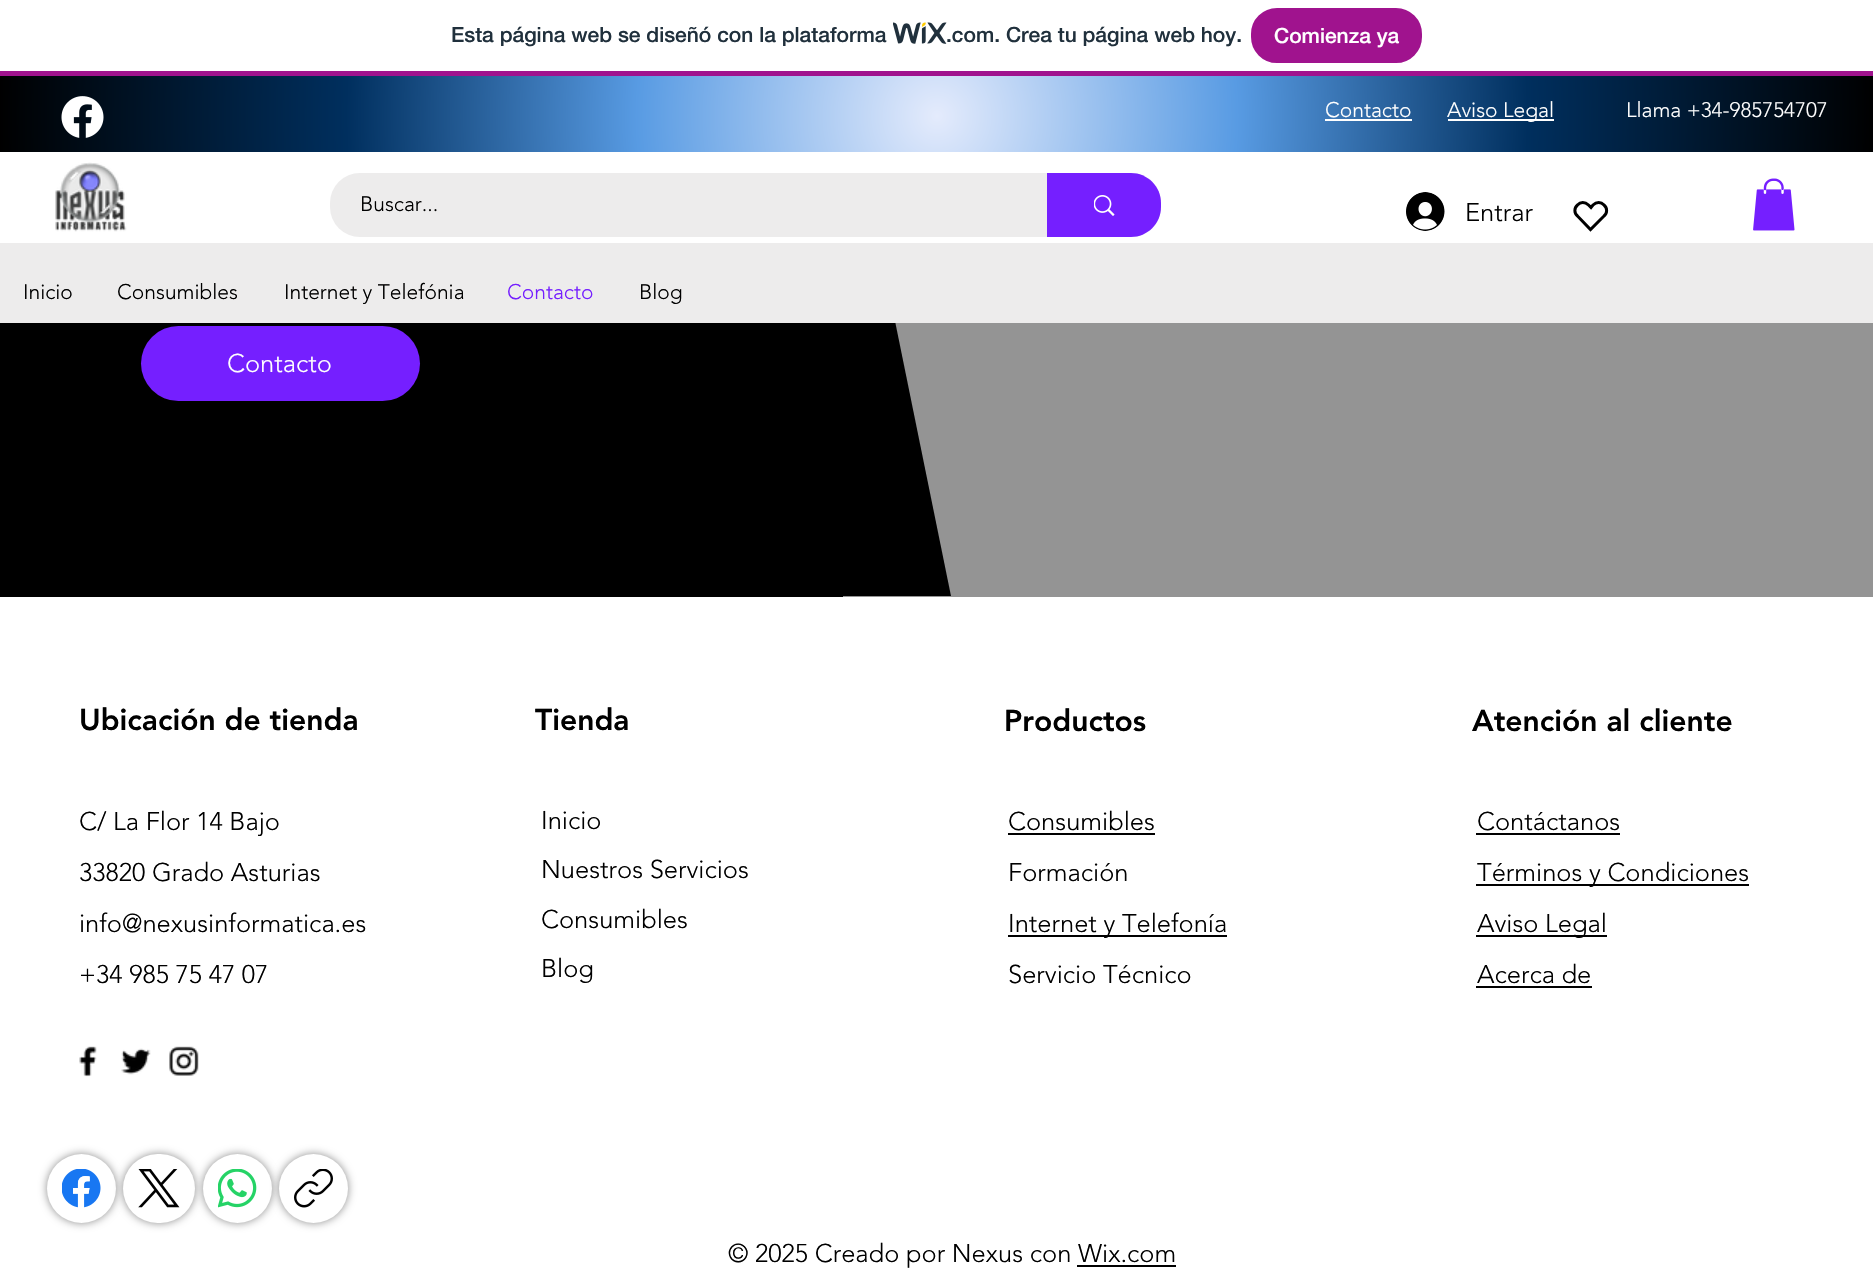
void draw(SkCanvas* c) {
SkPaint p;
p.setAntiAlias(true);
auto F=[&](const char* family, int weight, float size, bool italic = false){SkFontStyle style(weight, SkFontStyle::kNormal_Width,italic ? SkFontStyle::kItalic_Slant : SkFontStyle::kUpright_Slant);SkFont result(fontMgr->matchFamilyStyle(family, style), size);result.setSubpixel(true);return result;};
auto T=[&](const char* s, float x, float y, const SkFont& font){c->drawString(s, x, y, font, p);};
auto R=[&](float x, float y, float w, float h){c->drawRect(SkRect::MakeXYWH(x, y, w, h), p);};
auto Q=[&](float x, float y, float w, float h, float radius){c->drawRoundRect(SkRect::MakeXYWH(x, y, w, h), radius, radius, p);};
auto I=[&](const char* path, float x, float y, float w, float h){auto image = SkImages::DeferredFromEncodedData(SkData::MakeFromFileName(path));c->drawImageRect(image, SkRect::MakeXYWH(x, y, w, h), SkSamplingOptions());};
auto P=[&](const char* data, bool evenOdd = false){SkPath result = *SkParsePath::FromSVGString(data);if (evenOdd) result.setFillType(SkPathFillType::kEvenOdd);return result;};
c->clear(0xffffffff);
p.setColor(0xff000000);
R(0,323,843,274);
p.setColor(0xff949494);
R(843,323,1030,274);
p.setColor(0xff000000);
c->drawPath(P("M815-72h-23v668h159z"),p);
p.setColor(0xffffffff);
R(792,0,53,71);
p.setColor(0xffa0138e);
R(0,71,1873,5);
auto f1 = F("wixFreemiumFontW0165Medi",500,21);
p.setColor(0xff20303c);
T("Esta página web se diseñó con la plataforma",451,42,f1);
I("1.png",893,22,54,22);
T(".com. Crea tu página web hoy.",946,42,f1);
p.setColor(0xffa0138e);
c->drawRoundRect(SkRect::MakeXYWH(1252,9,169,53),25,25,p);
p.setStroke(true);
p.setStrokeWidth(2);
c->drawRoundRect(SkRect::MakeXYWH(1252,9,169,53),25,25,p);
p.setStroke(false);
p.setColor(0xffffffff);
T("Comienza ya",1274,43,f1);
{
const SkColor colors[] = {0xffe4ebfc,0xff589be3,0xff002f5e,0xff000000};
const float stops[] = {0,.32,.63,1};
p.setShader(SkGradientShader::MakeRadial({937,116}, 938, colors, stops, 4, SkTileMode::kClamp));
p.setAlpha(255);
}
R(0,76,1873,76);
I("2.png",61,96,43,42);
auto f2 = F("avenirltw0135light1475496",300,21);
p.setShader(nullptr);
p.setColor(0xffffffff);
T("Contacto",1325,117,f2);
R(1325,119,87,2);
R(1448,119,106,2);
T("Aviso Legal",1447,117,f2);
T("Llama +34-985754707",1626,117,f2);
R(792,152,88,91);
I("3.png",55,162,72,70);
p.setColor(0xffedecec);
Q(330,173,831,64,30);
p.setColor(0xff000000);
T("Buscar...",360,211,f2);
p.setColor(0xff751fff);
c->drawPath(P("M1047 173h84c16.5 0 30 13.5 30 30v4c0 16.5-13.5 30-30 30h-84z"),p);
I("4.png",1094,195,21,21);
I("5.png",1406,192,39,39);
auto f3 = F("avenirltw0135light1475496",300,25.5);
p.setColor(0xff000000);
T("Entrar",1465,221,f3);
p.setStroke(true);
p.setStrokeWidth(3);
c->drawPath(P("M1604 205c-3-3.5-7.5-3.5-11 0l-2 2.5l-2.5-2.5c-3.5-3.5-8-3.5-11 0c-3.5 3-3.5 8 0 11l13 13.5l13.5-13.5c3.5-3 3.5-8 0-11z"),p);
I("6.png",1753,178,42,53);
p.setStroke(false);
p.setColor(0xffedecec);
R(0,243,1873,80);
p.setColor(0xff000000);
T("Inicio",23,299,f2);
T("Consumibles",117,299,f2);
T("Internet y Telefónia",284,299,f2);
p.setColor(0xff751fff);
T("Contacto",507,299,f2);
p.setColor(0xff000000);
T("Blog",639,299,f2);
p.setColor(0xff751fff);
Q(141,326,279,75,37.5);
p.setColor(0xffffffff);
T("Contacto",227,372,f3);
auto f4 = F("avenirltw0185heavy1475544",900,30);
p.setColor(0xff000000);
T("Ubicación de tienda",79,730,f4);
T("C/ La Flor 14 Bajo",79,830,f3);
T("33820 Grado Asturias",79,881,f3);
T("info@nexusinformatica.es",79,932,f3);
T("+34 985 75 47 07",79,983,f3);
I("7.png",79,1046,18,31);
I("8.png",121,1048,30,27);
I("9.png",169,1046,30,30);
p.setColor(0x73000000);
p.setMaskFilter(SkMaskFilter::MakeBlur(kNormal_SkBlurStyle, 4));
c->drawRoundRect(SkRect::MakeXYWH(47,1154,69,69),34.5,34.5,p);
p.setMaskFilter(nullptr);
p.setColor(0xffffffff);
c->drawCircle(81.5,1188.5,34.5,p);
I("10.png",62,1169,39,39);
p.setColor(0x73000000);
p.setMaskFilter(SkMaskFilter::MakeBlur(kNormal_SkBlurStyle, 4));
c->drawRoundRect(SkRect::MakeXYWH(123,1154,72,69),34.5,34.5,p);
p.setMaskFilter(nullptr);
p.setColor(0xffffffff);
Q(123,1154,72,69,34.5);
I("11.png",138,1169,42,39);
p.setColor(0x73000000);
p.setMaskFilter(SkMaskFilter::MakeBlur(kNormal_SkBlurStyle, 4));
c->drawRoundRect(SkRect::MakeXYWH(203,1154,69,69),34.5,34.5,p);
p.setMaskFilter(nullptr);
p.setColor(0xffffffff);
c->drawCircle(237.5,1188.5,34.5,p);
I("12.png",218,1169,39,39);
p.setColor(0x73000000);
p.setMaskFilter(SkMaskFilter::MakeBlur(kNormal_SkBlurStyle, 4));
c->drawRoundRect(SkRect::MakeXYWH(279,1154,69,69),34.5,34.5,p);
p.setMaskFilter(nullptr);
p.setColor(0xffffffff);
c->drawCircle(313.5,1188.5,34.5,p);
I("13.png",294,1169,39,39);
p.setColor(0xff000000);
T("Tienda",535,730,f4);
T("Inicio",541,829,f3);
T("Nuestros Servicios",541,878,f3);
T("Consumibles",541,928,f3);
T("Blog",541,977,f3);
T("Productos",1004,731,f4);
T("Consumibles",1008,830,f3);
R(1008,833,147,2);
T("Formación",1008,881,f3);
R(1008,935,219,2);
T("Internet y Telefonía",1008,932,f3);
T("Servicio Técnico",1008,983,f3);
T("Atención al cliente",1472,731,f4);
T("Contáctanos",1477,830,f3);
R(1476,833,144,2);
R(1476,884,273,2);
T("Términos y Condiciones",1477,881,f3);
R(1476,935,131,2);
T("Aviso Legal",1477,932,f3);
T("Acerca de",1477,983,f3);
R(1476,986,116,2);
T("© 2025 Creado por Nexus con Wix.com",728,1262,f3);
R(1077,1265,99,2);
}
